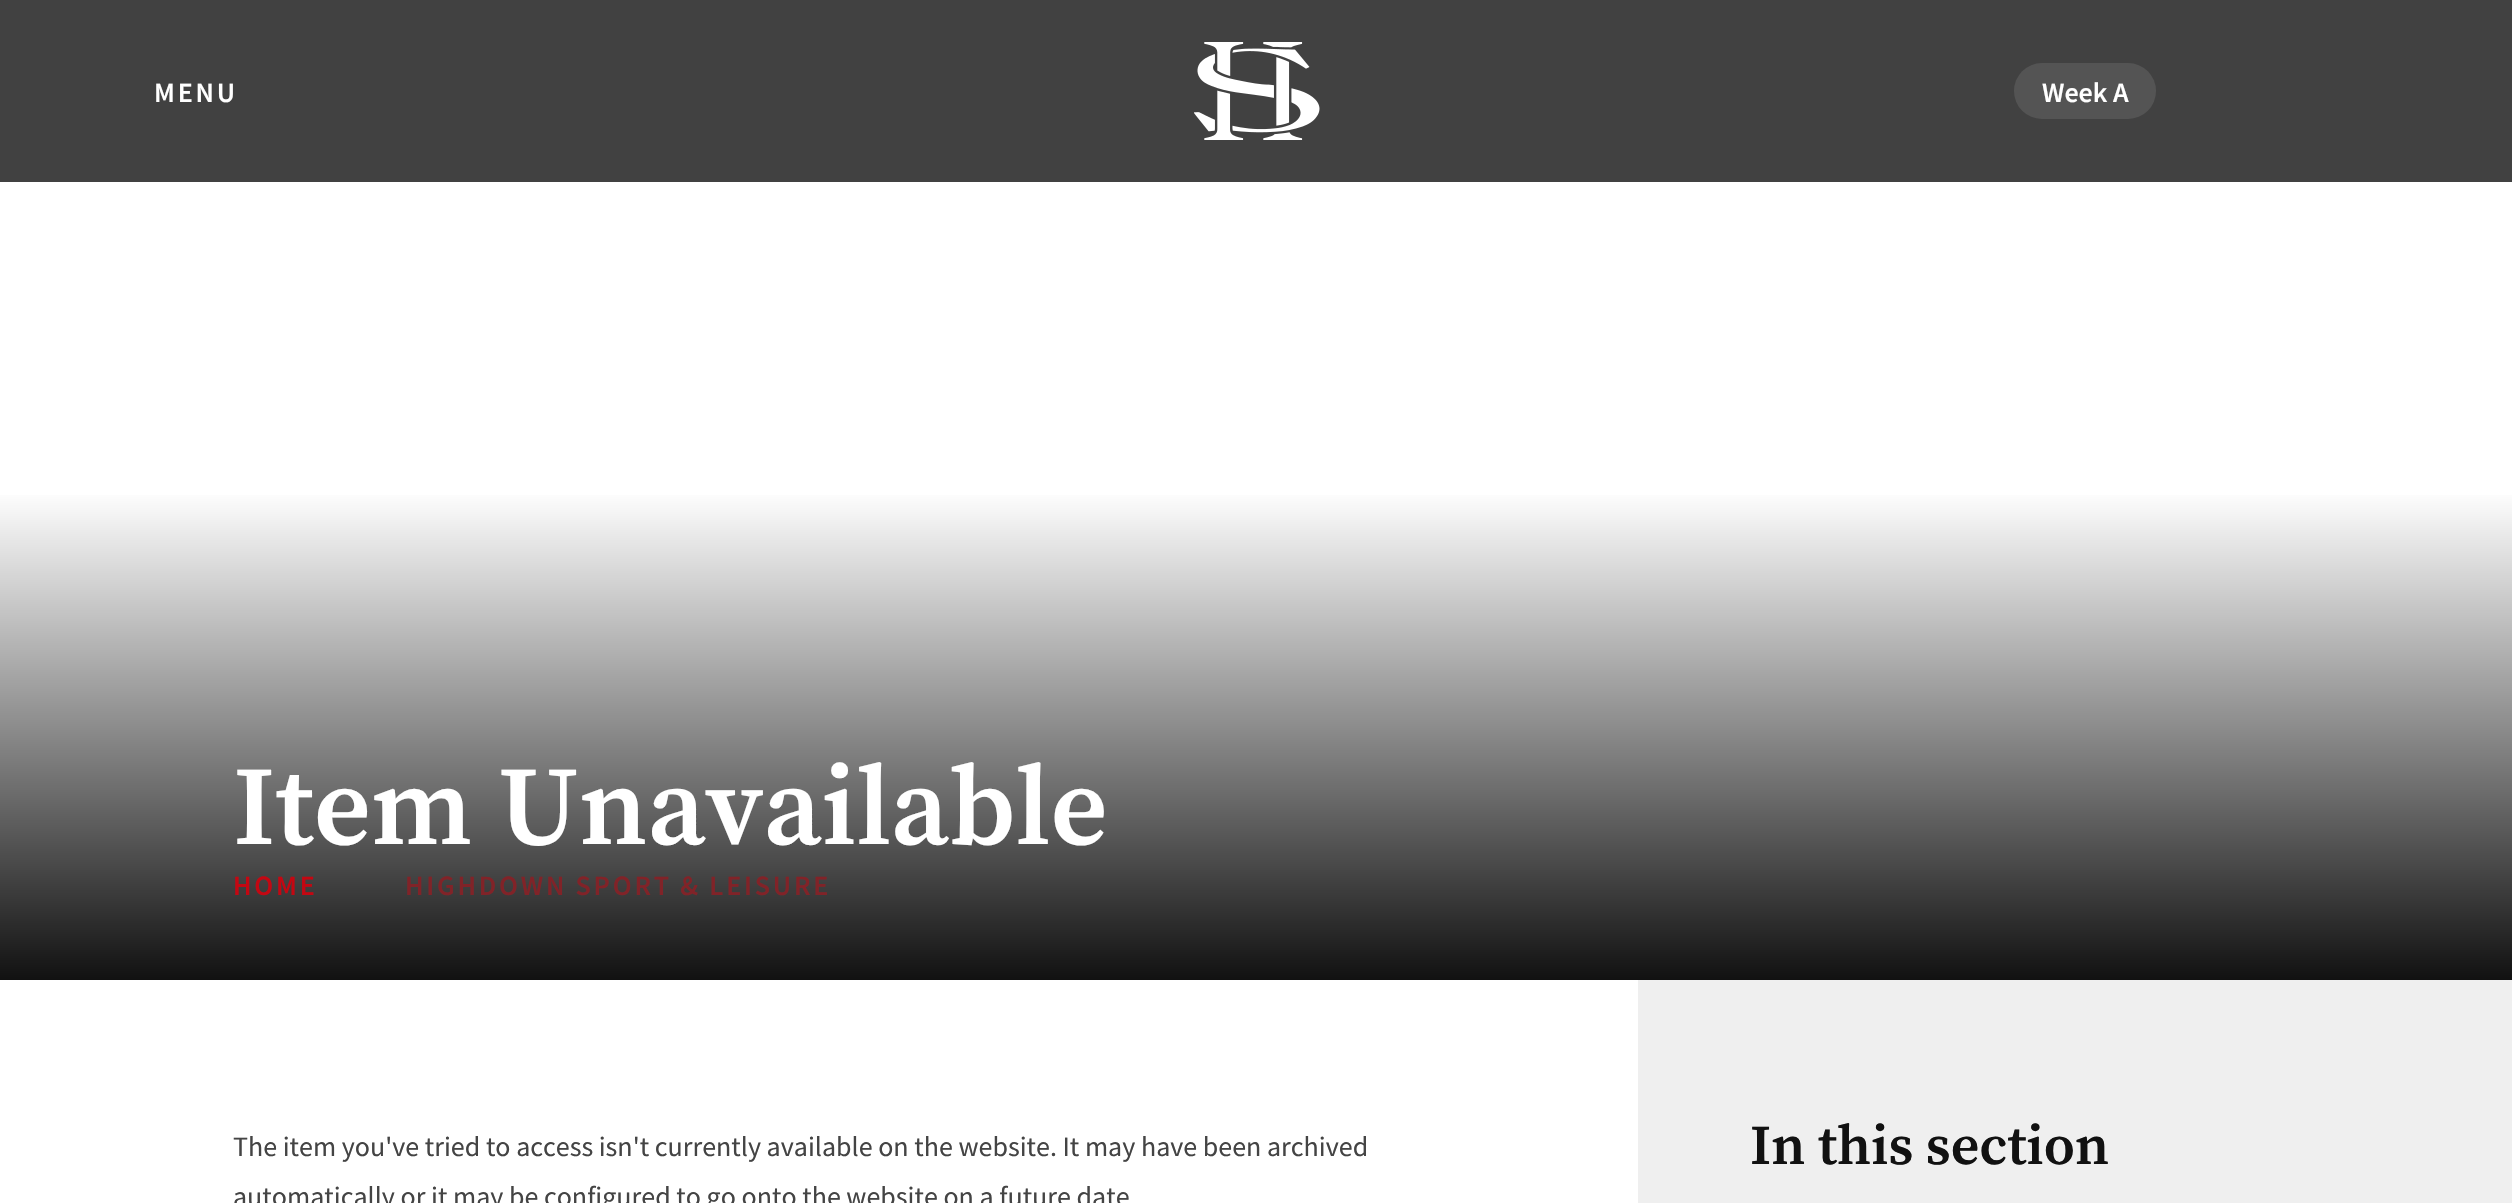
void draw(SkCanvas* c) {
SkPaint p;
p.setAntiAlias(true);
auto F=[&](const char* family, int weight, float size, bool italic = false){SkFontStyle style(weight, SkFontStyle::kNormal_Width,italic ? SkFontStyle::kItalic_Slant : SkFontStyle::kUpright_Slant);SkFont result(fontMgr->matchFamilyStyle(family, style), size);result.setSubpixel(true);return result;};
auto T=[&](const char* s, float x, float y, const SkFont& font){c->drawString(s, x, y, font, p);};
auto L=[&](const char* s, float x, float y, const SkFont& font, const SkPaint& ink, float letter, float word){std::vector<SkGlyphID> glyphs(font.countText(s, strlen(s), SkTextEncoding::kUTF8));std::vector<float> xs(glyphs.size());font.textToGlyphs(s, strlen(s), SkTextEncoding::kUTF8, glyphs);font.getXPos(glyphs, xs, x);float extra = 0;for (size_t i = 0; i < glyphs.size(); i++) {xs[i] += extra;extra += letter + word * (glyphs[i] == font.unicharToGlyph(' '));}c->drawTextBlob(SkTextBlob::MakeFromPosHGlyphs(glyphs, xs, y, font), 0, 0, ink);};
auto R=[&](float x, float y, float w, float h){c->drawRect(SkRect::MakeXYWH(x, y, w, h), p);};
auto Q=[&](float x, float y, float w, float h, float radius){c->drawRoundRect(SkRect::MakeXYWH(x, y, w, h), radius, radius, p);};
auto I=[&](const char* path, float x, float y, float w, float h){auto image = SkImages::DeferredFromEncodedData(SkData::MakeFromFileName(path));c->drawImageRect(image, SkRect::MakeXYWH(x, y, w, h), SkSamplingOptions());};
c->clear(0xffffffff);
p.setColor(0xff414141);
R(0,0,2512,182);
auto f1 = F("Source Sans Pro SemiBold",600,28);
p.setColor(0xffffffff);
L("MENU",154,102,f1,p,2.8,0);
I("1.png",1194,42,126,98);
p.setColor(0xff545454);
Q(2014,63,142,56,28);
p.setColor(0xffffffff);
T("Week A",2042,102,f1);
{
const SkColor colors[] = {0xffffffff,0xff111111};
const float stops[] = {0,1};
const SkPoint ends[] = {{1257,490}, {1257,980}};
p.setShader(SkGradientShader::MakeLinear(ends, colors, stops, 2, SkTileMode::kClamp));
p.setAlpha(255);
}
R(0,495,2512,485);
auto f2 = F("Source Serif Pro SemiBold",600,112);
p.setShader(nullptr);
p.setColor(0xffffffff);
T("Item Unavailable",233,844,f2);
p.setColor(0xffc40712);
L("HOME",233,895,f1,p,2.8,0);
p.setColor(0xff812328);
L("HIGHDOWN SPORT & LEISURE",405,895,f1,p,2.8,0);
auto f3 = F("Source Sans Pro",400,28);
p.setColor(0xff444444);
T("The item you've tried to access isn't currently available on the website. It may have been archived",233,1156,f3);
T("automatically or it may be configured to go onto the website on a future date",233,1206,f3);
p.setColor(0xffefefef);
R(1638,980,874,223);
auto f4 = F("Source Serif Pro SemiBold",600,56);
p.setColor(0xff111111);
T("In this section",1750,1164,f4);
}
